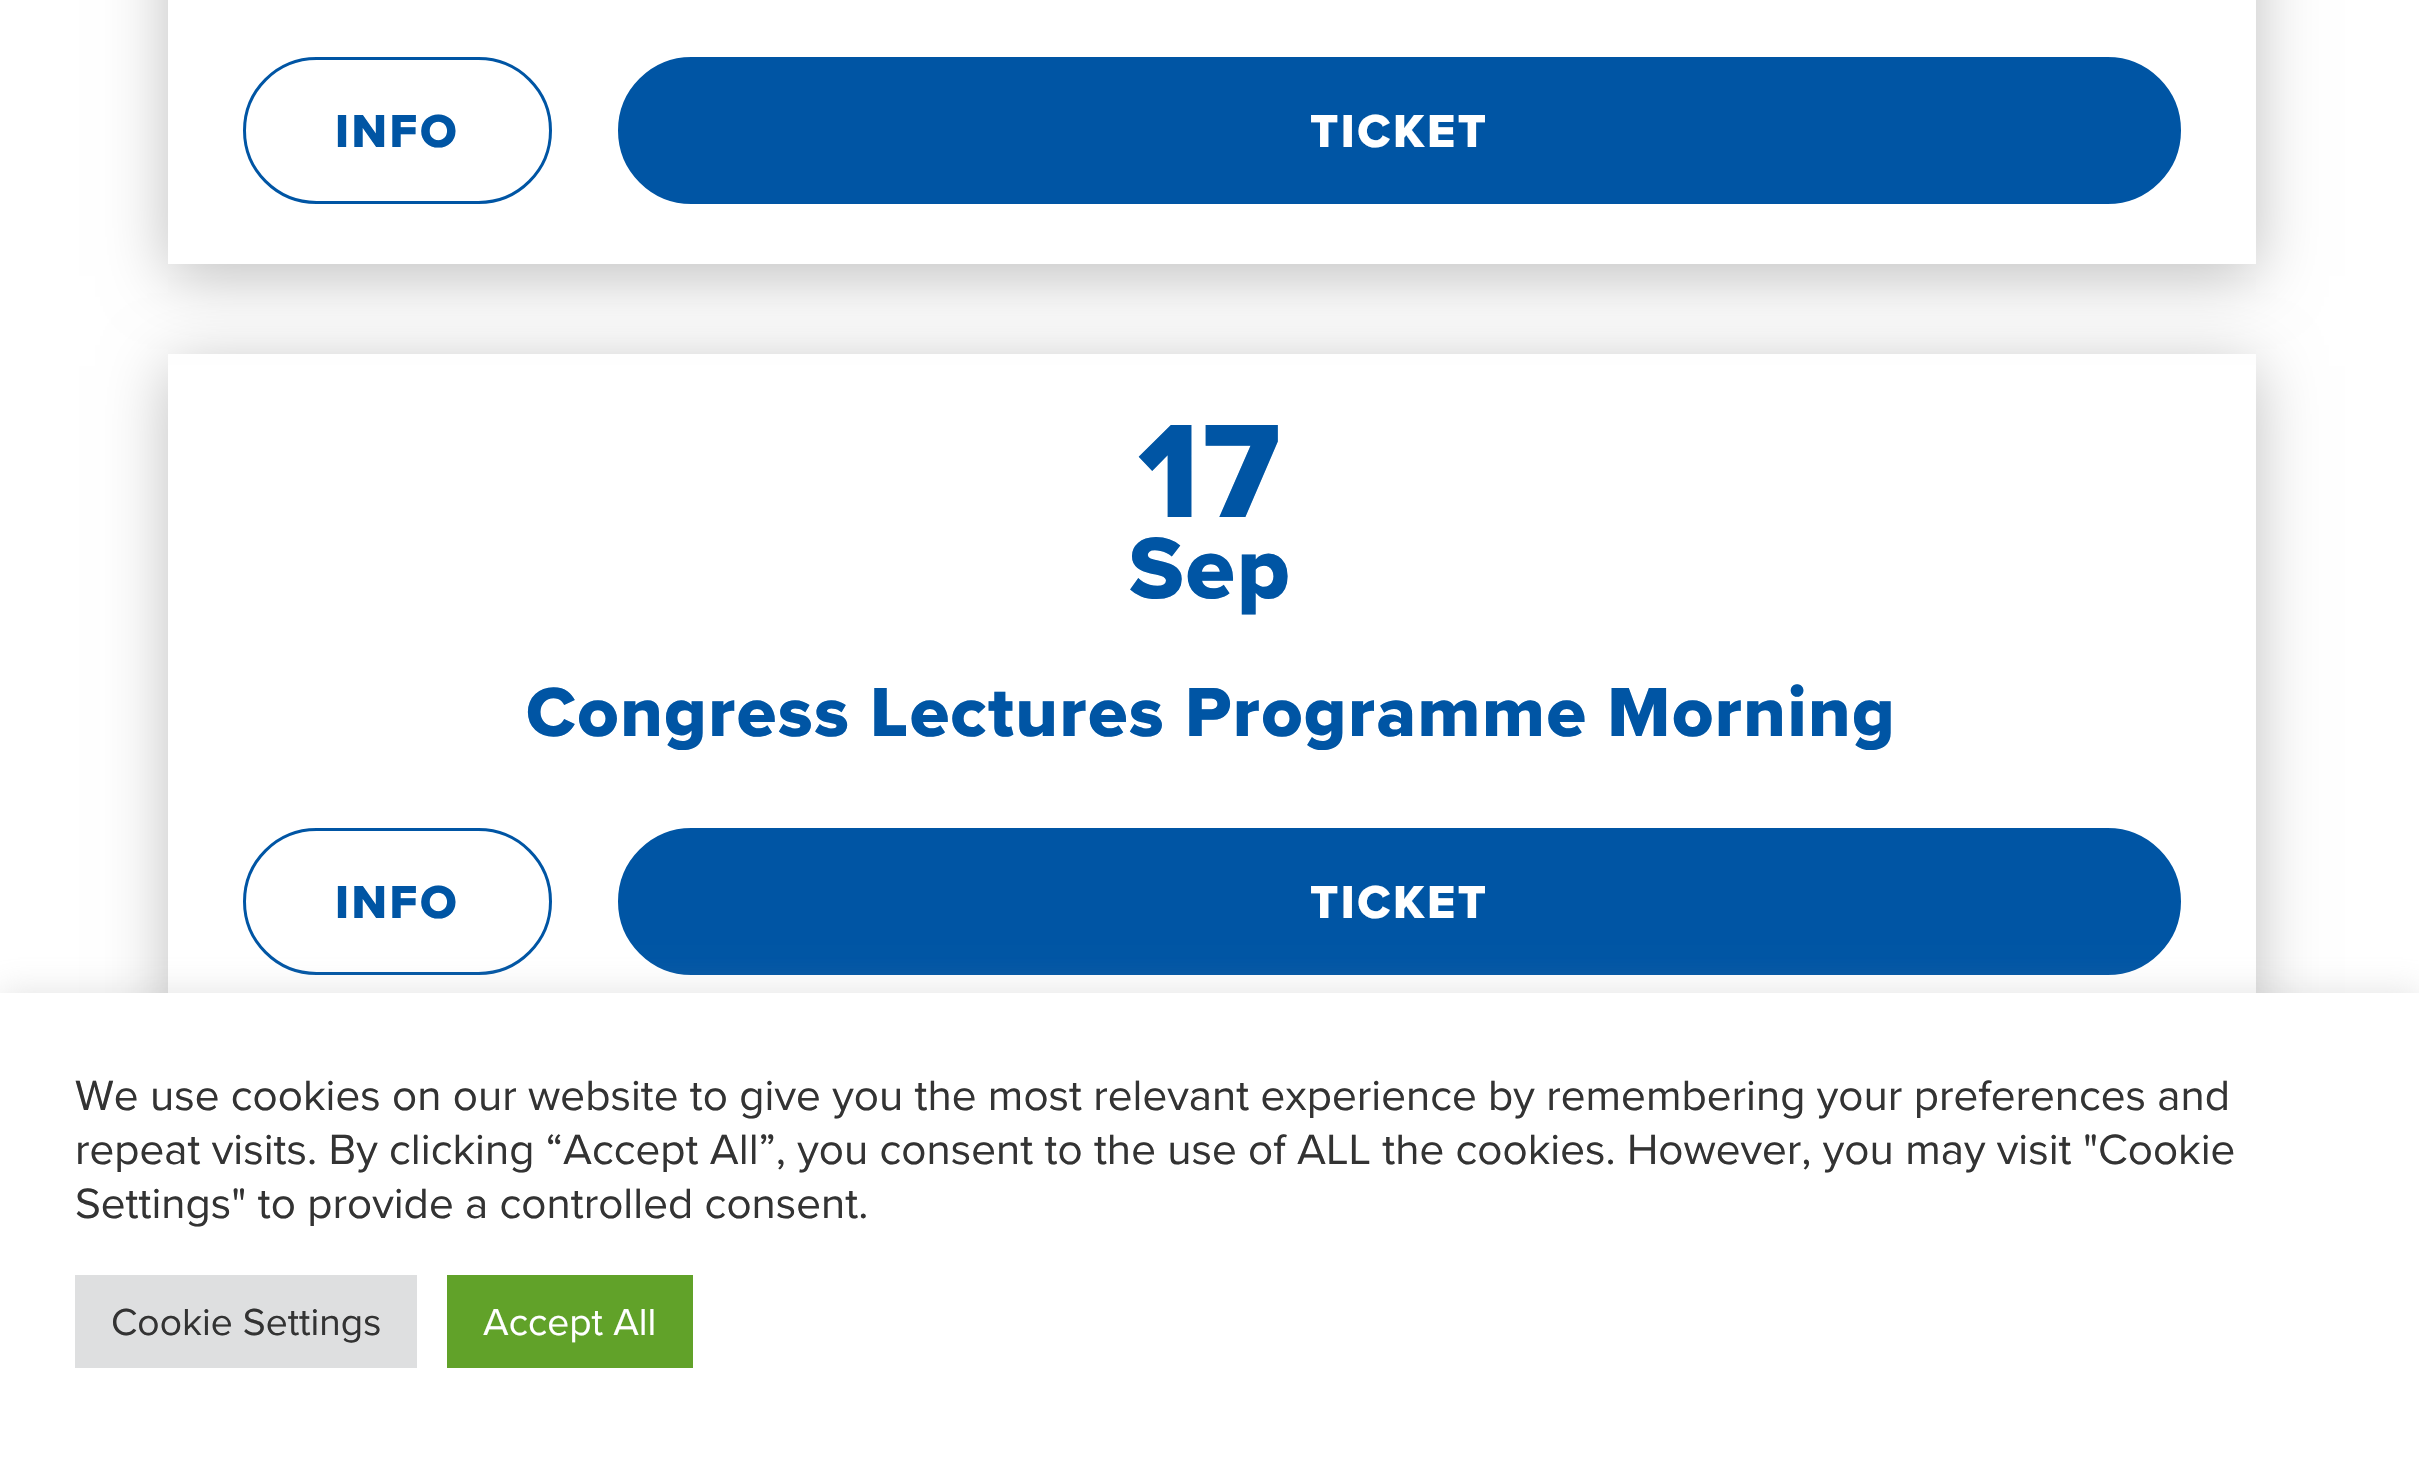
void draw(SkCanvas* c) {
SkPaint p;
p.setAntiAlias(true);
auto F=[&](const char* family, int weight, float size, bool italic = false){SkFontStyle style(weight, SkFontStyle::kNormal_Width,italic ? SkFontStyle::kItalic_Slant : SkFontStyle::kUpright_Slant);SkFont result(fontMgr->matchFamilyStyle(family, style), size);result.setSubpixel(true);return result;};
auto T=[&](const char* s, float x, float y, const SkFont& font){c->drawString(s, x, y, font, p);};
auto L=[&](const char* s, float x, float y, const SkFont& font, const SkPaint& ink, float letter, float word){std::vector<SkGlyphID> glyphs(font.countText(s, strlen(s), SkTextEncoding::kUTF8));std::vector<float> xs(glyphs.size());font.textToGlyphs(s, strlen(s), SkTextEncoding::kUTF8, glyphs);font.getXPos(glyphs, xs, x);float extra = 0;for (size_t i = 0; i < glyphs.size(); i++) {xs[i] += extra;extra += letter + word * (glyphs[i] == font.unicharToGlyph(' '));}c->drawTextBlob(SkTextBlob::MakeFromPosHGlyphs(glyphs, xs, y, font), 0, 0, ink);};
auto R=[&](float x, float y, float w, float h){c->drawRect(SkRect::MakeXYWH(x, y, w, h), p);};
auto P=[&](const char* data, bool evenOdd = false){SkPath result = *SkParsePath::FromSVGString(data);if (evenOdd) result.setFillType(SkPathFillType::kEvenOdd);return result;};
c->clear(0xffffffff);
c->save();
c->clipPath(P("M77 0h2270v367h-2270zm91-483h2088v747h-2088z",true),true);
p.setColor(0x40000000);
p.setMaskFilter(SkMaskFilter::MakeBlur(kNormal_SkBlurStyle, 30));
c->drawRect(SkRect::MakeXYWH(168,-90,2088,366),p);
p.setMaskFilter(nullptr);
c->restore();
p.setStroke(true);
p.setStrokeWidth(3);
p.setColor(0xff0055a4);
c->drawRoundRect(SkRect::MakeXYWH(244.5,58.5,306,144),72,72,p);
auto f1 = F("Proxima Nova",800,48);
p.setStroke(false);
L("INFO",335,147,f1,p,2.5,0);
c->drawRoundRect(SkRect::MakeXYWH(619.5,58.5,1560,144),72,72,p);
p.setStroke(true);
c->drawRoundRect(SkRect::MakeXYWH(619.5,58.5,1560,144),72,72,p);
p.setStroke(false);
p.setColor(0xffffffff);
L("TICKET",1310,147,f1,p,2.5,0);
c->save();
c->clipPath(P("M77 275h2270v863h-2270zm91 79h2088v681h-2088z",true),true);
p.setColor(0x40000000);
p.setMaskFilter(SkMaskFilter::MakeBlur(kNormal_SkBlurStyle, 30));
c->drawRect(SkRect::MakeXYWH(168,366,2088,681),p);
p.setMaskFilter(nullptr);
c->restore();
auto f2 = F("Proxima Nova",800,138);
p.setColor(0xff0055a4);
L("17",1138,517,f2,p,3,0);
auto f3 = F("Proxima Nova",800,90);
L("Sep",1129,598,f3,p,2,0);
auto f4 = F("Proxima Nova",800,72);
L("Congress Lectures Programme Morning",526,736,f4,p,1.45,0);
p.setStroke(true);
c->drawRoundRect(SkRect::MakeXYWH(244.5,829.5,306,144),72,72,p);
p.setStroke(false);
L("INFO",335,918,f1,p,2.5,0);
c->drawRoundRect(SkRect::MakeXYWH(619.5,829.5,1560,144),72,72,p);
p.setStroke(true);
c->drawRoundRect(SkRect::MakeXYWH(619.5,829.5,1560,144),72,72,p);
p.setStroke(false);
p.setColor(0xffffffff);
L("TICKET",1310,918,f1,p,2.5,0);
p.setColor(0x4dacabab);
p.setMaskFilter(SkMaskFilter::MakeBlur(kNormal_SkBlurStyle, 15));
c->drawRect(SkRect::MakeXYWH(0,990,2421,465),p);
p.setMaskFilter(nullptr);
p.setColor(0xffffffff);
R(0,993,2419,465);
auto f5 = F("Proxima Nova",400,44);
p.setColor(0xff333333);
T("We use cookies on our website to give you the most relevant experience by remembering your preferences and",75,1110,f5);
T("repeat visits. By clicking “Accept All”, you consent to the use of ALL the cookies. However, you may visit \"Cookie",75,1164,f5);
T("Settings\" to provide a controlled consent.",75,1218,f5);
p.setColor(0xffdedfe0);
R(75,1275,342,93);
auto f6 = F("Proxima Nova",400,39);
p.setColor(0xff333333);
T("Cookie Settings",111,1335,f6);
p.setColor(0xff61a229);
R(447,1275,246,93);
p.setColor(0xffffffff);
T("Accept All",483,1335,f6);
}
